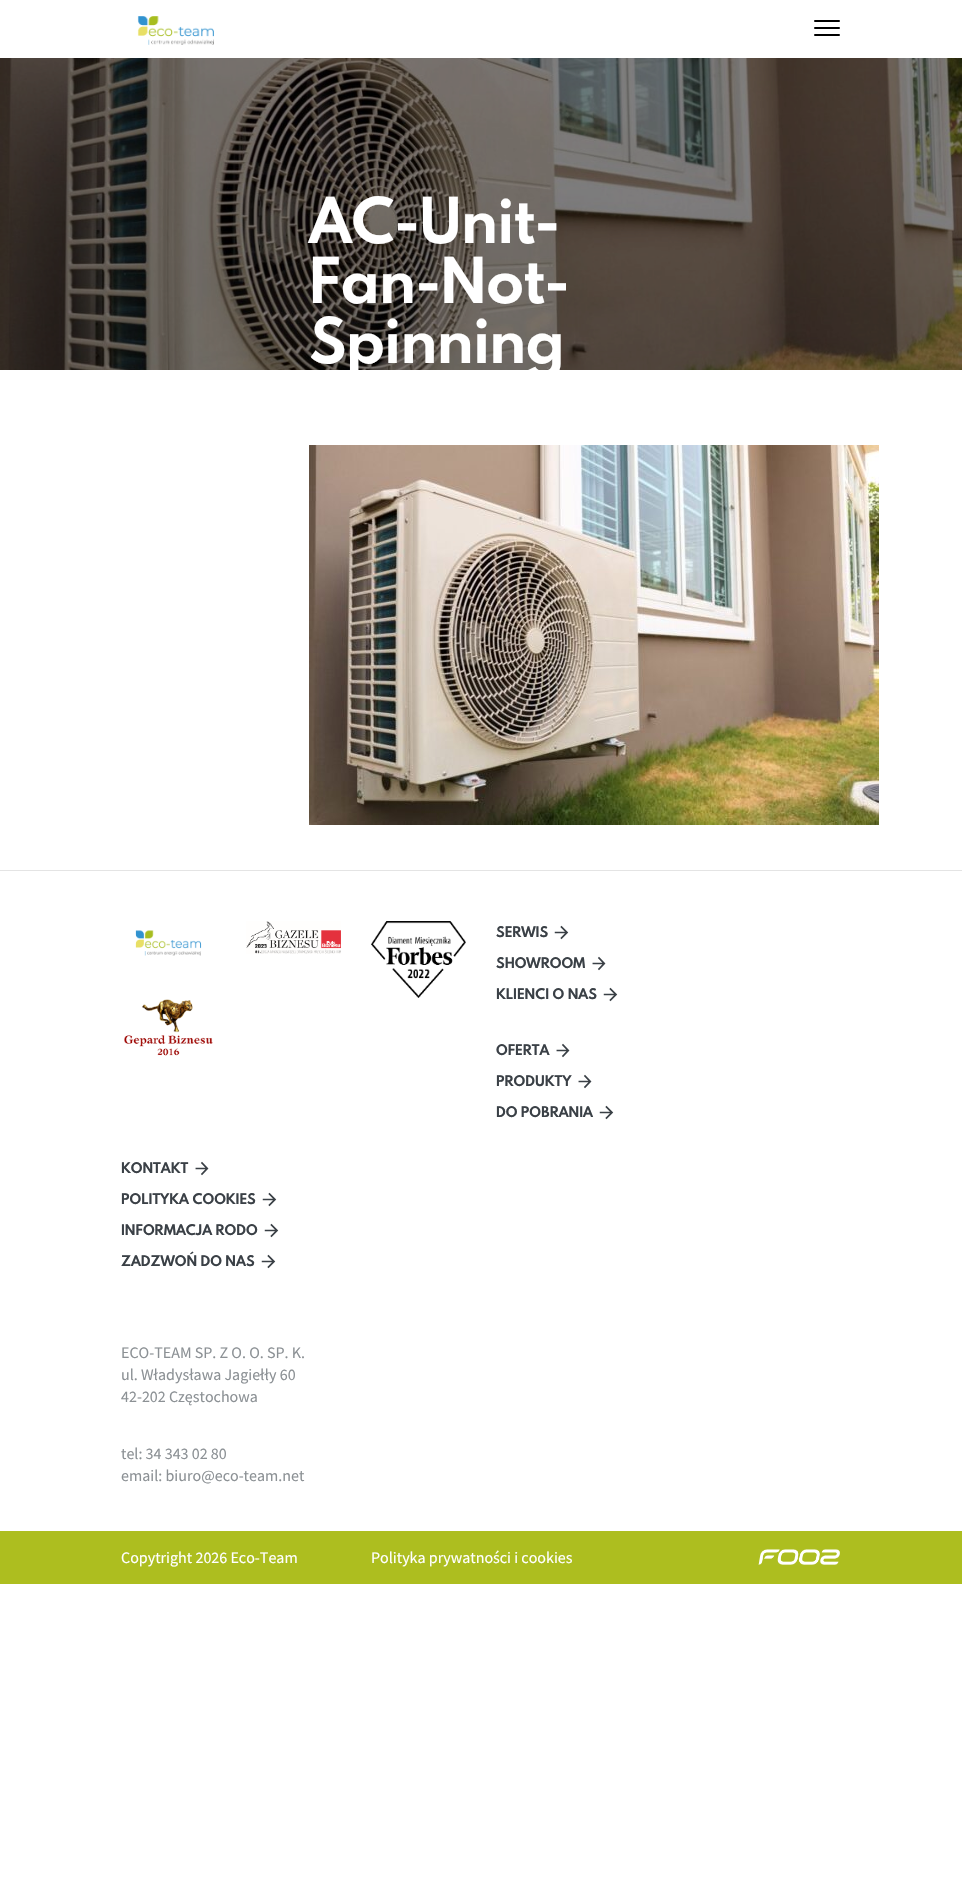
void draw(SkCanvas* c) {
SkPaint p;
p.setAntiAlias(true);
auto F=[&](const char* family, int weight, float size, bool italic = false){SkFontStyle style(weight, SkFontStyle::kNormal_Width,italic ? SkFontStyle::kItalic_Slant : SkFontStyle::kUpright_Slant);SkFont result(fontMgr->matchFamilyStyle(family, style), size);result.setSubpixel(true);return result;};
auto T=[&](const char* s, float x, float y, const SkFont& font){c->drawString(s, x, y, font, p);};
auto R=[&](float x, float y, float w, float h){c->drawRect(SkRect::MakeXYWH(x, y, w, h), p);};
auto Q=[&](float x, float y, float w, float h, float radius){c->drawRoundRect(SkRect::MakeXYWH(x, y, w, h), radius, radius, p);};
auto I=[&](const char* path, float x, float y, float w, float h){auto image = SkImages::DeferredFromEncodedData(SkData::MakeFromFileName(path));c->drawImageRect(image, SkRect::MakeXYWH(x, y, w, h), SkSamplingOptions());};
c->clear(0xffffffff);
I("1.png",137,16,77,29);
p.setColor(0xff000000);
Q(814,20,26,2,1);
Q(814,27,26,2,1);
Q(814,34,26,2,1);
I("2.png",0,58,962,312);
auto f1 = F("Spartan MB",700,56);
p.setColor(0xffffffff);
T("AC-Unit-",309,243,f1);
T("Fan-Not-",309,303,f1);
T("Spinning",309,363,f1);
I("3.png",309,445,570,380);
p.setColor(0xffe4e4e4);
R(0,870,962,1);
I("4.png",135,930,67,26);
I("5.png",246,921,95,33);
I("6.png",371,921,95,77);
I("7.png",124,999,89,57);
auto f2 = F("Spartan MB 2",700,13);
p.setColor(0xff3a4046);
T("SERWIS",496,937,f2);
I("8.png",554,925,15,15);
T("SHOWROOM",496,968,f2);
I("9.png",592,956,14,15);
T("KLIENCI O NAS",496,999,f2);
I("8.png",603,987,15,15);
T("OFERTA",496,1055,f2);
I("9.png",556,1043,14,15);
T("PRODUKTY",496,1086,f2);
I("9.png",578,1074,14,15);
T("DO POBRANIA",496,1117,f2);
I("8.png",599,1105,15,15);
T("KONTAKT",121,1173,f2);
I("9.png",195,1161,14,15);
T("POLITYKA COOKIES",121,1204,f2);
I("8.png",262,1192,15,15);
T("INFORMACJA RODO",121,1235,f2);
I("8.png",264,1223,15,15);
T("ZADZWOŃ DO NAS",121,1266,f2);
I("8.png",261,1254,15,15);
auto f3 = F("Source Sans Pro",400,16);
p.setColor(0xff8c9195);
T("ECO-TEAM SP. Z O. O. SP. K.",121,1358,f3);
T("ul. Władysława Jagiełły 60",121,1380,f3);
T("42-202 Częstochowa",121,1402,f3);
T("tel: 34 343 02 80",121,1459,f3);
T("email: biuro@eco-team.net",121,1481,f3);
p.setColor(0xffadbe1f);
R(0,1531,962,53);
p.setColor(0xffffffff);
T("Copytright 2026 Eco-Team",121,1563,f3);
T("Polityka prywatności i cookies",371,1563,f3);
I("10.png",758,1549,82,16);
}
